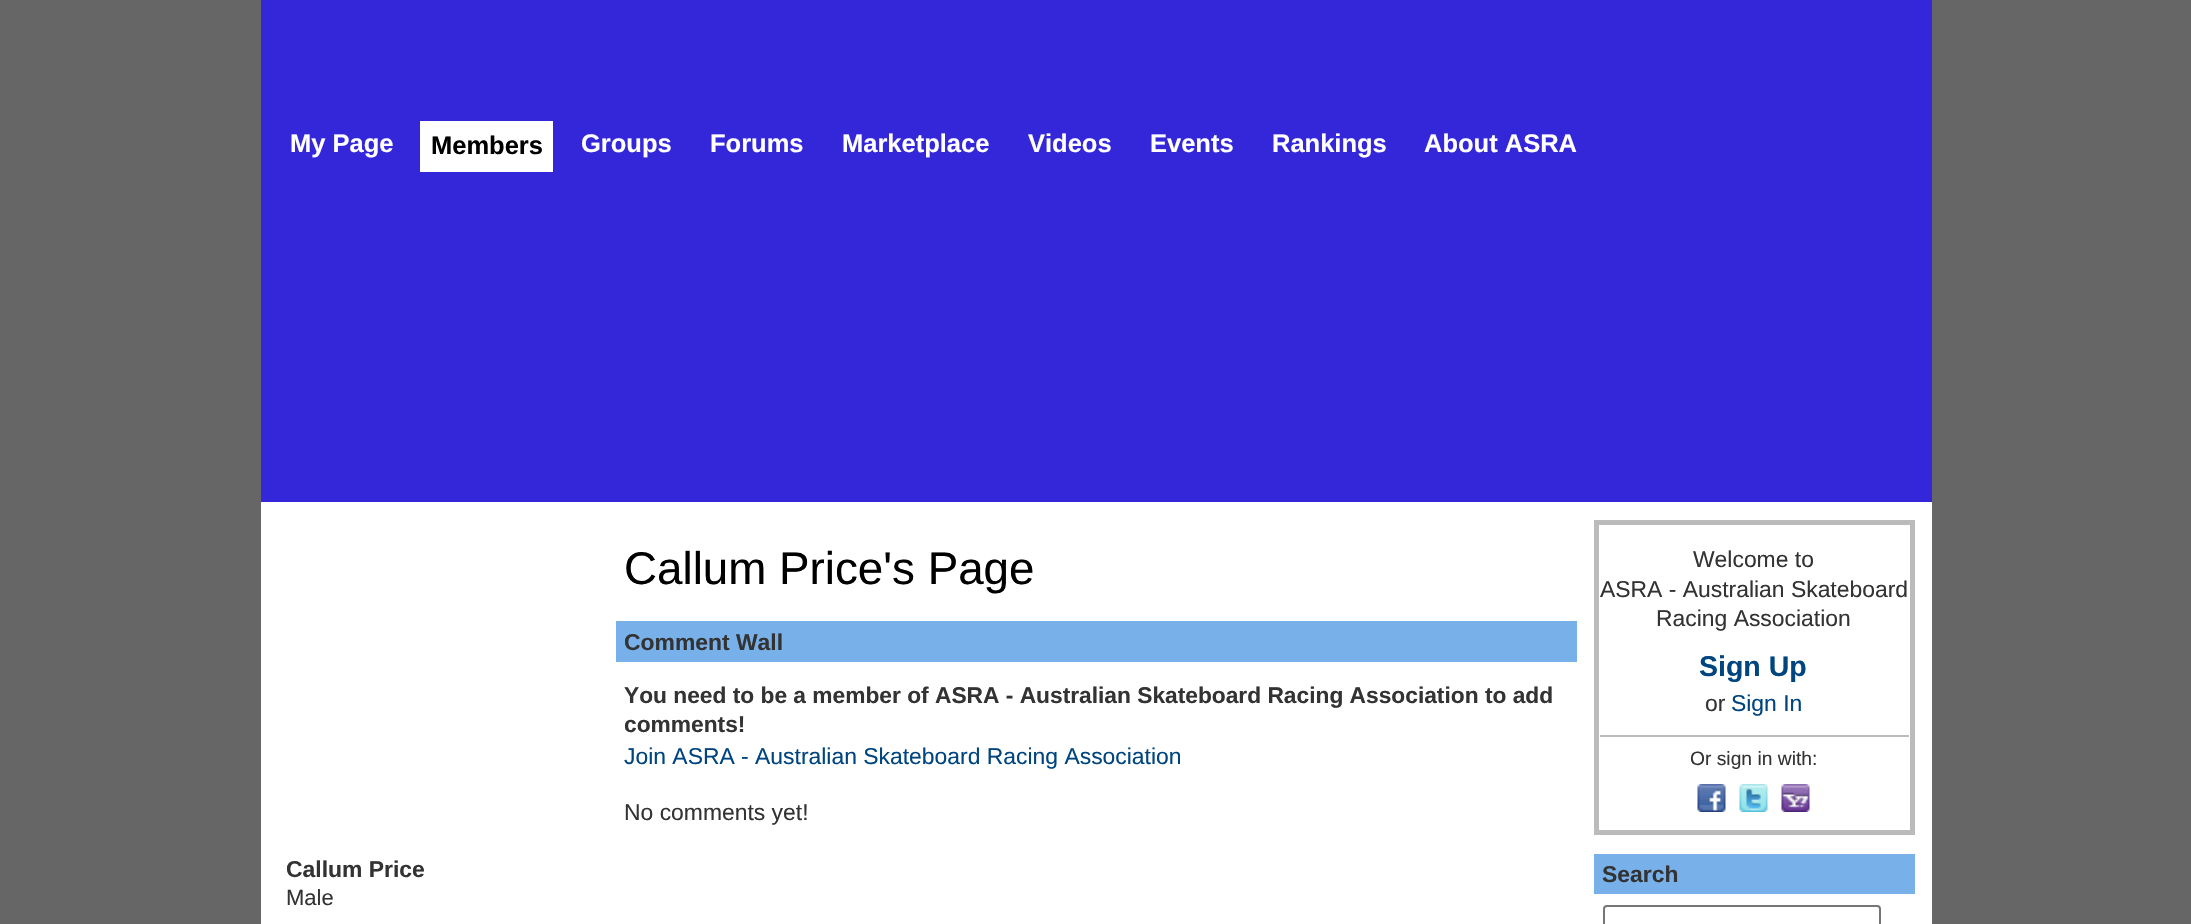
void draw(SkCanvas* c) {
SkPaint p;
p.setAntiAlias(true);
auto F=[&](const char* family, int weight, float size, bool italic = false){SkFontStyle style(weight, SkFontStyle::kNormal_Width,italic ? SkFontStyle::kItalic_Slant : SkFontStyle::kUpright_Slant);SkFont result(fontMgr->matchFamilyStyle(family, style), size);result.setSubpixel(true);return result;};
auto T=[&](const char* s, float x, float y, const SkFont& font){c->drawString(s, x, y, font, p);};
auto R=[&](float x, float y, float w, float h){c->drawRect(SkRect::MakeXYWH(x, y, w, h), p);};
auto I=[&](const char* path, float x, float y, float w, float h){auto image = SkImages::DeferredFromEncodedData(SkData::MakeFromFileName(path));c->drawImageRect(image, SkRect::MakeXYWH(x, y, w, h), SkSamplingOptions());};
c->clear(0xff666666);
p.setColor(0xff3427da);
R(261,0,1671,502);
auto f1 = F("Liberation Sans",700,25.5);
p.setColor(0xffffffff);
T("My Page",290,152,f1);
R(420,121,133,51);
p.setColor(0xff000000);
T("Members",431,154,f1);
p.setColor(0xffffffff);
T("Groups",581,152,f1);
T("Forums",710,152,f1);
T("Marketplace",842,152,f1);
T("Videos",1028,152,f1);
T("Events",1150,152,f1);
T("Rankings",1272,152,f1);
T("About ASRA",1424,152,f1);
R(261,502,1671,422);
auto f2 = F("Liberation Sans",400,45.75);
p.setColor(0xff000000);
T("Callum Price's Page",624,584,f2);
p.setColor(0xff78b0ea);
R(616,621,961,41);
c->save();
c->clipRect(SkRect::MakeXYWH(625,627,157,29));
auto f3 = F("Liberation Sans",700,22.9);
p.setColor(0xff333333);
T("Comment Wall",624,650,f3);
c->restore();
auto f4 = F("Liberation Sans",700,22.75);
T("You need to be a member of ASRA - Australian Skateboard Racing Association to add",624,703,f4);
T("comments!",624,732,f4);
auto f5 = F("Liberation Sans",400,22.9);
p.setColor(0xff00457f);
T("Join ASRA - Australian Skateboard Racing Association",624,764,f5);
p.setColor(0xff333333);
T("No comments yet!",624,820,f5);
T("Callum Price",286,877,f3);
auto f6 = F("Liberation Sans",400,22);
T("Male",286,905,f6);
p.setStroke(true);
p.setStrokeWidth(5);
p.setColor(0xffbbbbbb);
c->drawRect(SkRect::MakeXYWH(1596.5,522.5,316,310),p);
p.setStroke(false);
p.setColor(0xff333333);
T("Welcome to",1693,567,f5);
T("ASRA - Australian Skateboard",1600,597,f5);
T("Racing Association",1656,626,f5);
auto f7 = F("Liberation Sans",700,28.5);
p.setColor(0xff00457f);
T("Sign Up",1699,676,f7);
p.setColor(0xff333333);
T("or",1705,711,f5);
p.setColor(0xff00457f);
T("Sign In",1731,711,f5);
p.setColor(0xffbbbbbb);
R(1600,735,309,2);
auto f8 = F("Liberation Sans",400,19.25);
p.setColor(0xff333333);
T("Or sign in with:",1690,765,f8);
I("1.png",1697,784,29,28);
I("2.png",1739,784,29,28);
I("3.png",1781,784,29,28);
p.setColor(0xff78b0ea);
R(1594,854,321,40);
p.setColor(0xff333333);
T("Search",1602,882,f3);
p.setStroke(true);
p.setStrokeWidth(2);
p.setColor(0xff767676);
c->drawRoundRect(SkRect::MakeXYWH(1604,906,276,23),3,3,p);
}
